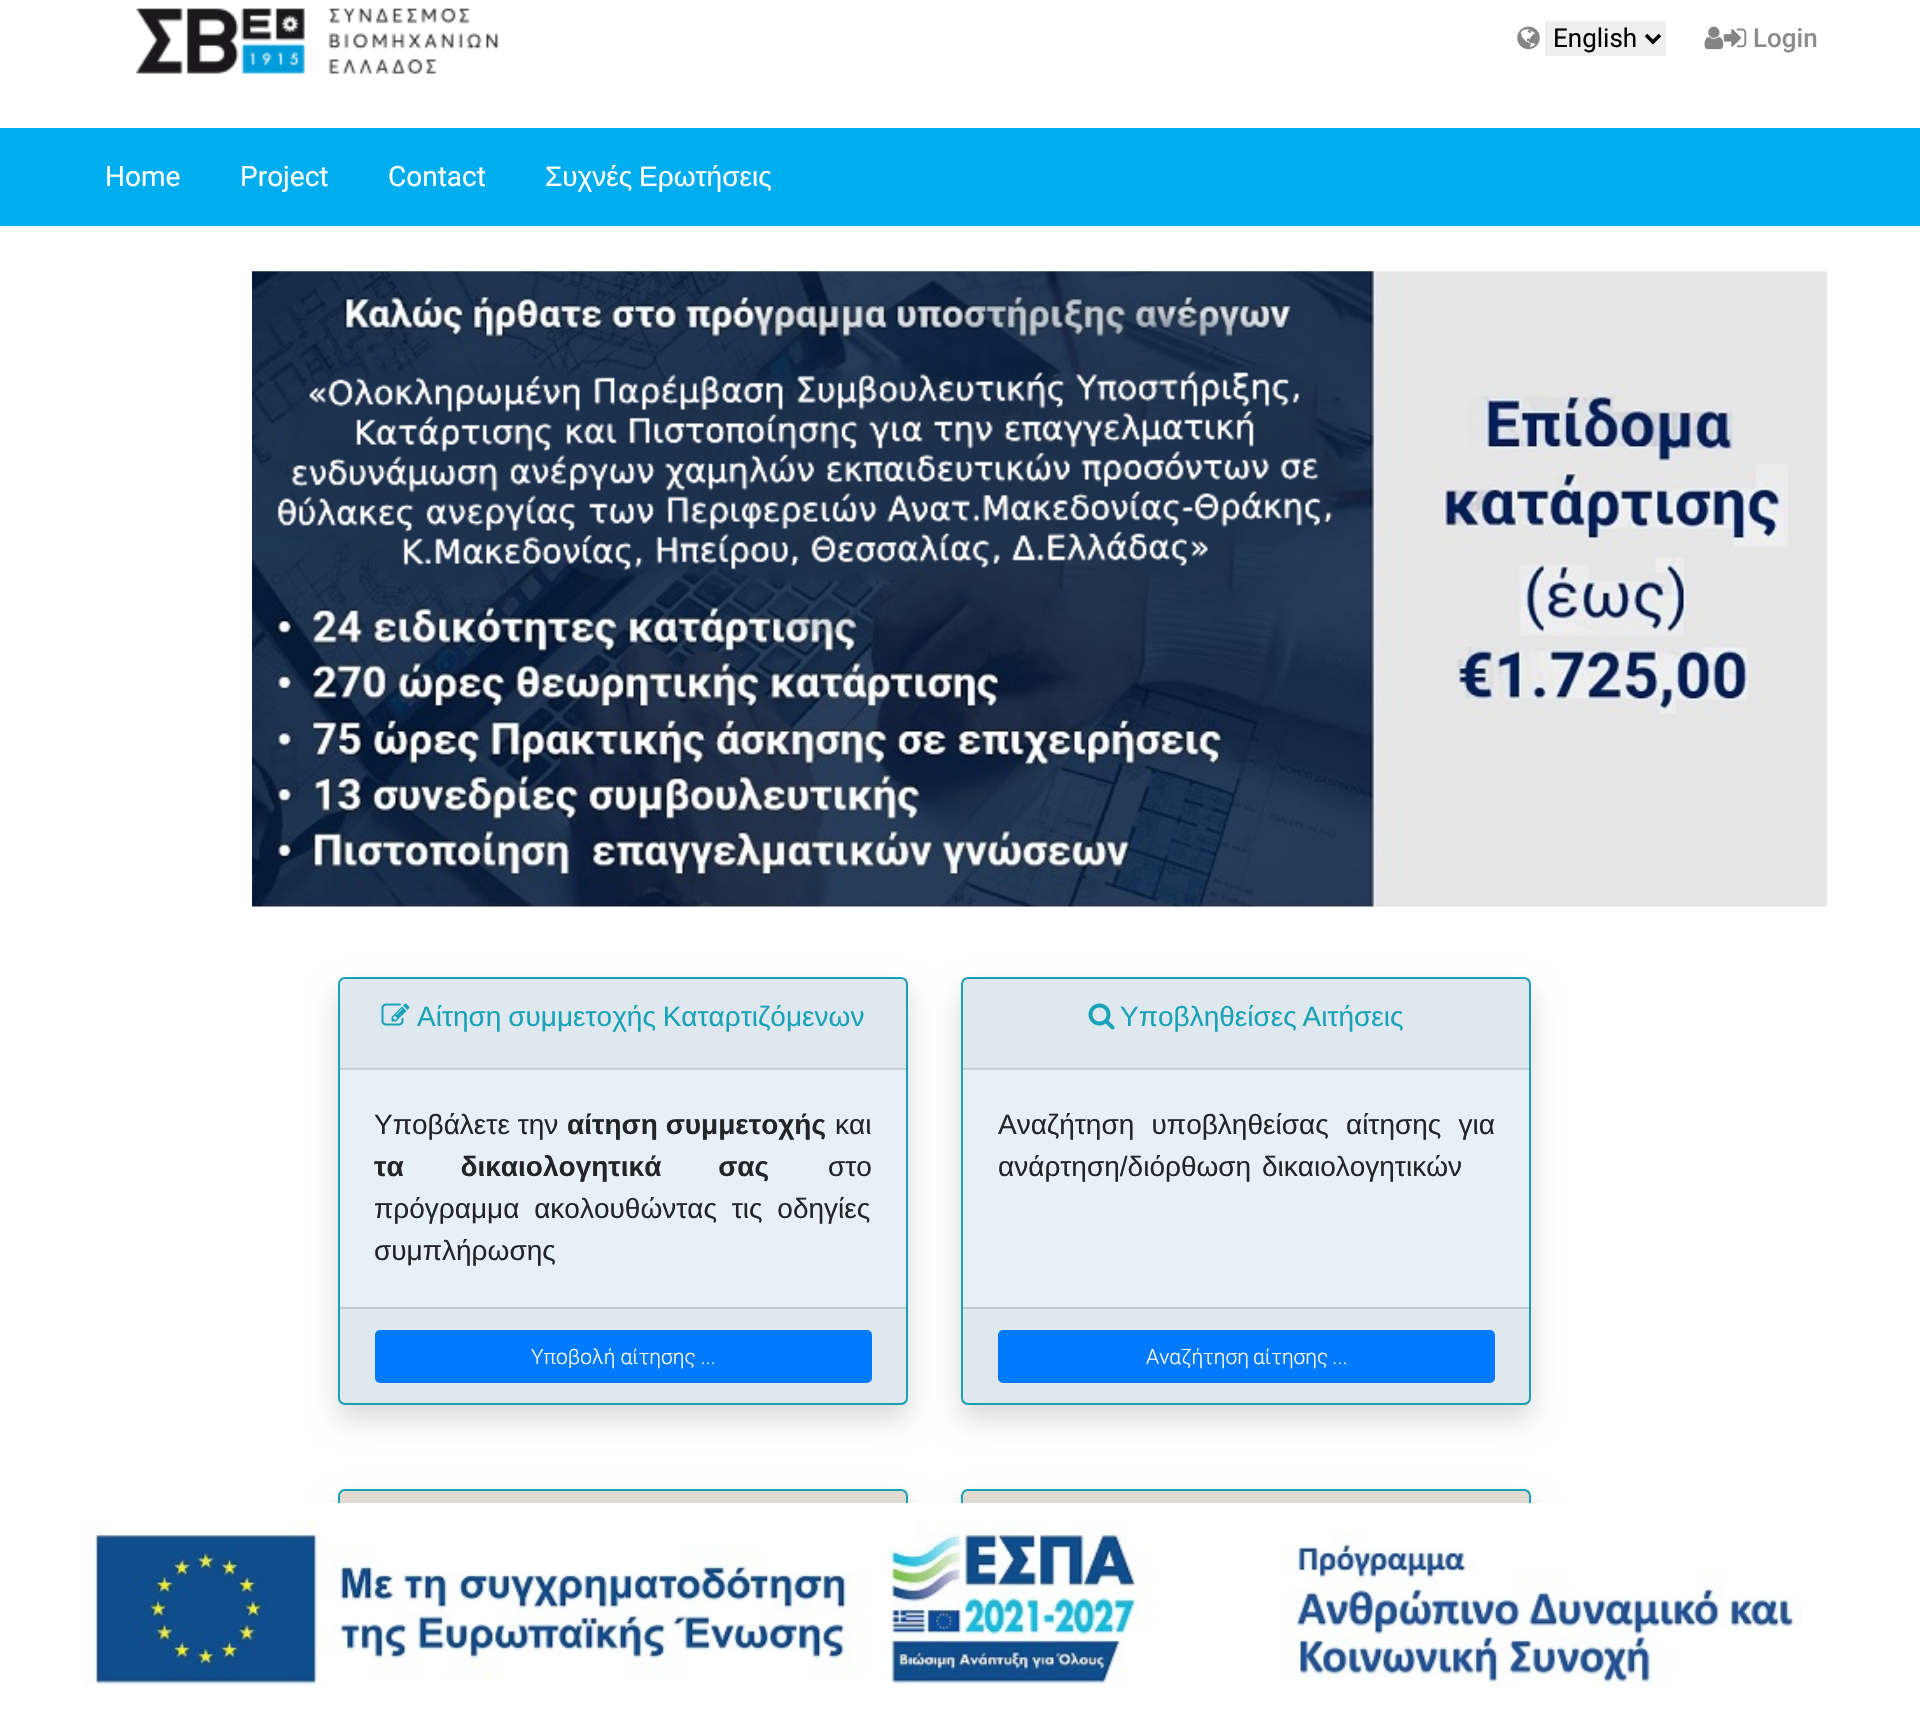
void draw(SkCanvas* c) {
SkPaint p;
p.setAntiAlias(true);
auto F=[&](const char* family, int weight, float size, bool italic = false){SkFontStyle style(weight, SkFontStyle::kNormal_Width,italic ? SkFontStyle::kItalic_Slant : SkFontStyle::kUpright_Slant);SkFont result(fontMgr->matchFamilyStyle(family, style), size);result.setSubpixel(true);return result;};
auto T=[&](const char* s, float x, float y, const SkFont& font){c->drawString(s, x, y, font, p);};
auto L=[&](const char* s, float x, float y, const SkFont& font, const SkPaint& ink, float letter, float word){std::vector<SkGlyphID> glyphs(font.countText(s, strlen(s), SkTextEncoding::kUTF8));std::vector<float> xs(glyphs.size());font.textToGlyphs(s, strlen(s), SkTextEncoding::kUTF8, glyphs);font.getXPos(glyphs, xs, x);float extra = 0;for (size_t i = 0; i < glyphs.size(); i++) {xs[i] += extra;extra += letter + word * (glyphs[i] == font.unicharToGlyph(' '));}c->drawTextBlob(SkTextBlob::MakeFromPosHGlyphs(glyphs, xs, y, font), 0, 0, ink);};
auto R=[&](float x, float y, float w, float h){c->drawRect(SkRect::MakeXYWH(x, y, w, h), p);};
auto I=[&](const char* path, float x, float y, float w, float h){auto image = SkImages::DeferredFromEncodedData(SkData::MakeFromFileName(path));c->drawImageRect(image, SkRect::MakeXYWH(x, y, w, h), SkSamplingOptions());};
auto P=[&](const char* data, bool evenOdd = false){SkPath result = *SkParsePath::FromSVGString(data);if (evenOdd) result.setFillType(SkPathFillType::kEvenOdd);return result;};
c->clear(0xffffffff);
I("1.png",136,8,363,66);
I("2.png",1517,26,23,24);
p.setColor(0xffefefef);
R(1545,21,121,35);
p.setStroke(true);
p.setStrokeWidth(3.5);
p.setColor(0xff000000);
c->drawPath(P("M1646 35l7 7l7-7"),p);
auto f1 = F("Roboto",400,26);
p.setStroke(false);
T("English",1553,47,f1);
I("3.png",1704,26,20,24);
I("4.png",1723,28,24,20);
auto f2 = F("Roboto",500,26);
p.setColor(0xff8d8c8c);
T("Login",1753,47,f2);
p.setColor(0xff00aeef);
R(0,128,1920,98);
auto f3 = F("Roboto",400,28);
p.setColor(0xffffffff);
T("Home",105,186,f3);
T("Project",240,186,f3);
T("Contact",388,186,f3);
auto f4 = F("Liberation Sans",400,28);
L("Συχνές Ερωτήσεις",545,186,f4,p,0,-1);
I("5.png",252,271,1575,636);
p.setColor(0x26000000);
p.setMaskFilter(SkMaskFilter::MakeBlur(kNormal_SkBlurStyle, 14));
c->drawRoundRect(SkRect::MakeXYWH(338,991,570,428),7,7,p);
p.setMaskFilter(nullptr);
p.setColor(0xffe7eff7);
c->drawRoundRect(SkRect::MakeXYWH(339,978,568,426),6,6,p);
p.setStroke(true);
p.setStrokeWidth(2);
p.setColor(0xff17a2b8);
c->drawRoundRect(SkRect::MakeXYWH(339,978,568,426),6,6,p);
p.setStroke(false);
p.setColor(0x08000000);
R(340,978,567,91);
p.setColor(0x1f000000);
R(340,1068,567,2);
I("6.png",381,1003,29,23);
p.setColor(0xff17a2b8);
L("Αίτηση συμμετοχής Καταρτιζόμενων",417,1026,f4,p,0,-1);
p.setColor(0xff212529);
T("Υποβάλετε την",374,1134,f4);
auto f5 = F("Liberation Sans",700,28);
T("αίτηση συμμετοχής",567,1134,f5);
T("και",835,1134,f4);
L("τα δικαιολογητικά σας",374,1176,f5,p,0,49);
T("στο",828,1176,f4);
L("πρόγραμμα ακολουθώντας τις οδηγίες",374,1218,f4,p,0,7);
T("συμπλήρωσης",374,1260,f4);
p.setColor(0x08000000);
R(340,1307,567,97);
p.setColor(0x1f000000);
R(340,1307,567,2);
p.setColor(0xff007bff);
c->drawRoundRect(SkRect::MakeXYWH(376,1331,495,51),4,4,p);
p.setStroke(true);
c->drawRoundRect(SkRect::MakeXYWH(376,1331,495,51),4,4,p);
auto f6 = F("Roboto",300,21);
p.setStroke(false);
p.setColor(0xffffffff);
T("Υποβολή αίτησης ...",531,1364,f6);
p.setColor(0x26000000);
p.setMaskFilter(SkMaskFilter::MakeBlur(kNormal_SkBlurStyle, 14));
c->drawRoundRect(SkRect::MakeXYWH(961,991,570,428),7,7,p);
p.setMaskFilter(nullptr);
p.setColor(0xffe7eff7);
c->drawRoundRect(SkRect::MakeXYWH(962,978,568,426),6,6,p);
p.setStroke(true);
p.setColor(0xff17a2b8);
c->drawRoundRect(SkRect::MakeXYWH(962,978,568,426),6,6,p);
p.setStroke(false);
p.setColor(0x08000000);
R(963,978,567,91);
p.setColor(0x1f000000);
R(963,1068,567,2);
I("7.png",1088,1003,27,27);
p.setColor(0xff17a2b8);
L("Yποβληθείσες Αιτήσεις",1120,1026,f4,p,0,-2);
p.setColor(0xff212529);
L("Αναζήτηση υποβληθείσας αίτησης για",998,1134,f4,p,0,9.5);
L("ανάρτηση/διόρθωση δικαιολογητικών",998,1176,f4,p,0,3);
p.setColor(0x08000000);
R(963,1307,567,97);
p.setColor(0x1f000000);
R(963,1307,567,2);
p.setColor(0xff007bff);
c->drawRoundRect(SkRect::MakeXYWH(999,1331,495,51),4,4,p);
p.setStroke(true);
c->drawRoundRect(SkRect::MakeXYWH(999,1331,495,51),4,4,p);
p.setStroke(false);
p.setColor(0xffffffff);
L("Αναζήτηση αίτησης ...",1146,1364,f6,p,0,-1);
c->save();
c->clipRect(SkRect::MakeXYWH(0,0,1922,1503));
p.setColor(0x26000000);
p.setMaskFilter(SkMaskFilter::MakeBlur(kNormal_SkBlurStyle, 14));
c->drawRoundRect(SkRect::MakeXYWH(338,1503,570,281),7,7,p);
p.setMaskFilter(nullptr);
c->restore();
p.setColor(0xffe8e1d8);
c->drawPath(P("M345 1489h556c4 0 7 3 7 7v7h-570v-7c0-4 3-7 7-7z"),p);
c->save();
c->clipRect(SkRect::MakeXYWH(0,0,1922,1503));
p.setStroke(true);
p.setColor(0xff17a2b8);
c->drawRoundRect(SkRect::MakeXYWH(339,1490,568,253),6,6,p);
c->restore();
p.setStroke(false);
p.setColor(0x08000000);
R(340,1491,567,12);
c->save();
c->clipRect(SkRect::MakeXYWH(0,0,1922,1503));
p.setColor(0x26000000);
p.setMaskFilter(SkMaskFilter::MakeBlur(kNormal_SkBlurStyle, 14));
c->drawRoundRect(SkRect::MakeXYWH(961,1503,570,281),7,7,p);
p.setMaskFilter(nullptr);
c->restore();
p.setColor(0xffe8e1d8);
c->drawPath(P("M968 1489h556c4 0 7 3 7 7v7h-570v-7c0-4 3-7 7-7z"),p);
c->save();
c->clipRect(SkRect::MakeXYWH(0,0,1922,1503));
p.setStroke(true);
p.setColor(0xff17a2b8);
c->drawRoundRect(SkRect::MakeXYWH(962,1490,568,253),6,6,p);
c->restore();
p.setStroke(false);
p.setColor(0x08000000);
R(963,1491,567,12);
I("8.png",84,1521,1718,166);
}
